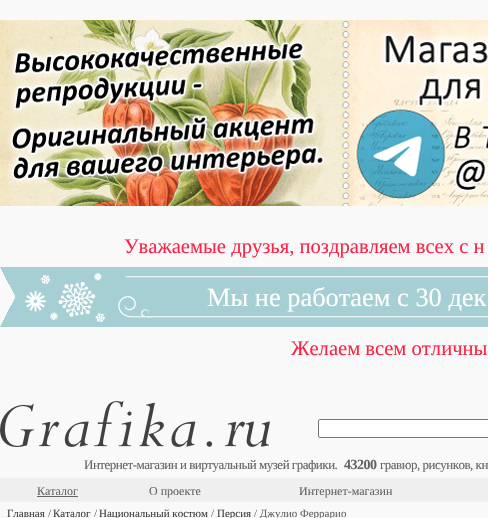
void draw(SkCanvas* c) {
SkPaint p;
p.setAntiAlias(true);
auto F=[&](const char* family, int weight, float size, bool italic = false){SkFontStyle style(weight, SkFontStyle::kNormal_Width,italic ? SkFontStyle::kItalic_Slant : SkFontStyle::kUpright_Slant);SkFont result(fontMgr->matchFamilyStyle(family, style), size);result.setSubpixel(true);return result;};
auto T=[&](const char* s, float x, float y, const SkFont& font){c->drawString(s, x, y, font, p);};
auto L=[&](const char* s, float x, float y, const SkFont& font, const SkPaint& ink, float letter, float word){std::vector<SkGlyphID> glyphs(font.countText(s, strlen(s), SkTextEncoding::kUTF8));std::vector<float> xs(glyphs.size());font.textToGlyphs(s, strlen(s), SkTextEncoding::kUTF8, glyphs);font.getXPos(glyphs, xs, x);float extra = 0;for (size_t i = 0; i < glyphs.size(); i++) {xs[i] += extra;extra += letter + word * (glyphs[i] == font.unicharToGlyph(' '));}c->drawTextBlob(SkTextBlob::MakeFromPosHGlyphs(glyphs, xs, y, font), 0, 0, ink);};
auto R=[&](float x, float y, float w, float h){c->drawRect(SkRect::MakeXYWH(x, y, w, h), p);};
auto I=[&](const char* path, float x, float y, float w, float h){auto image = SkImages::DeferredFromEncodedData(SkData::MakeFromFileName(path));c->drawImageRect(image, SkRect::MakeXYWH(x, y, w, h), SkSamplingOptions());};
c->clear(0xfff9f9f9);
I("1.png",0,20,488,186);
auto f1 = F("Liberation Serif",400,20.6);
p.setColor(0xffff2244);
T("Уважаемые друзья, поздравляем всех с н",124,253,f1);
I("2.png",0,267,488,60);
auto f2 = F("Liberation Serif",400,26.4);
p.setColor(0xffffffff);
T("Мы не работаем с 30 дек",207,306,f2);
p.setColor(0xffff2244);
T("Желаем всем отличны",291,355,f1);
I("3.png",0,401,270,46);
auto f3 = F("Liberation Serif",400,13);
p.setColor(0xff646464);
L("Интернет-магазин и виртуальный музей графики.",84,469,f3,p,-.5,0);
auto f4 = F("Liberation Serif",700,14);
L("43200",344,469,f4,p,-.5,0);
L("гравюр, рисунков, кн",380,469,f3,p,-.5,0);
p.setColor(0xffefefef);
R(0,478,488,24);
p.setColor(0xffffffff);
c->drawRoundRect(SkRect::MakeXYWH(318.5,419.5,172,18),1.5,1.5,p);
p.setStroke(true);
p.setStrokeWidth(1);
p.setColor(0xff767676);
c->drawRoundRect(SkRect::MakeXYWH(318.5,419.5,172,18),1.5,1.5,p);
auto f5 = F("Liberation Serif",400,12);
p.setStroke(false);
p.setColor(0xff646464);
T("Каталог",37,495,f5);
R(37,496,41,1);
T("О проекте",149,495,f5);
T("Интернет-магазин",299,495,f5);
auto f6 = F("Liberation Serif",400,11);
p.setColor(0xff404040);
T("Главная",7,517,f6);
p.setColor(0xff646464);
T("/",48,517,f6);
p.setColor(0xff404040);
T("Каталог",53,517,f6);
p.setColor(0xff646464);
T("/",94,517,f6);
p.setColor(0xff404040);
T("Национальный костюм",99,517,f6);
p.setColor(0xff646464);
T("/",211,517,f6);
p.setColor(0xff404040);
T("Персия",217,517,f6);
p.setColor(0xff646464);
T("/ Джулио Феррарио",254,517,f6);
}
